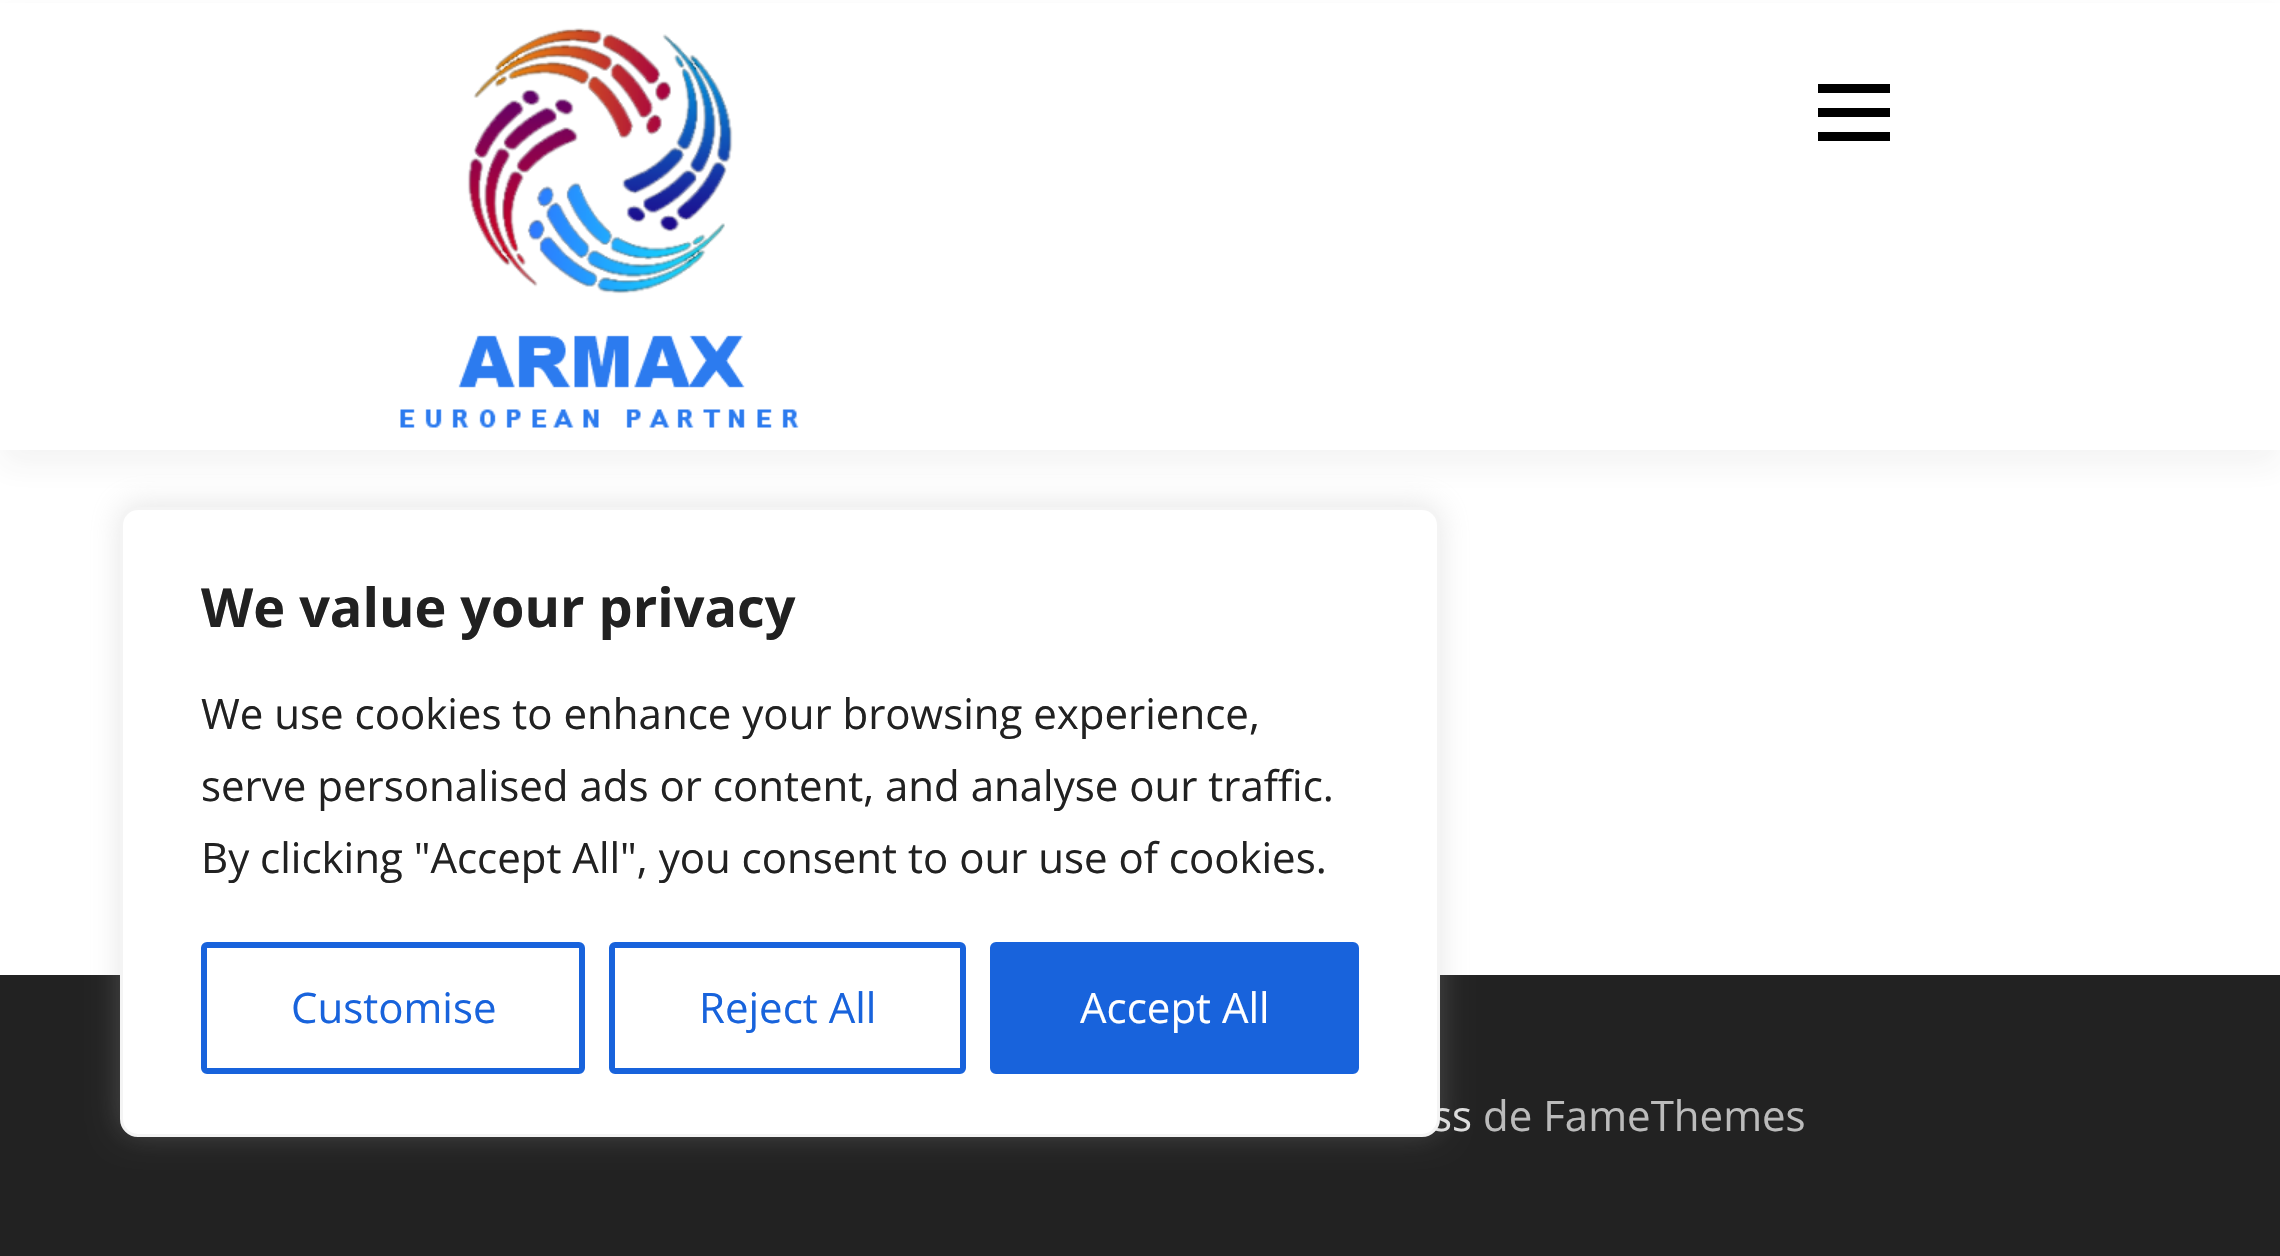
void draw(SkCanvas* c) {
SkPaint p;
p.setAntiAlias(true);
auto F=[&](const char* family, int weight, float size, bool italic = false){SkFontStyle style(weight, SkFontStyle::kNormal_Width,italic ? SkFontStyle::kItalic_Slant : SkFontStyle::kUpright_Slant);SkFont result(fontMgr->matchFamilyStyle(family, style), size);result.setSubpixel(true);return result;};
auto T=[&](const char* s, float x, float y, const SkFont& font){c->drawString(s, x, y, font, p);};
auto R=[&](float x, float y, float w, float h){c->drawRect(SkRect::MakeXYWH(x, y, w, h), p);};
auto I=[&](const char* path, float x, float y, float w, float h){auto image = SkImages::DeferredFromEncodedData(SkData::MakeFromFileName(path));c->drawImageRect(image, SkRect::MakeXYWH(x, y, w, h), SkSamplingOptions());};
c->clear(0xffffffff);
p.setColor(0xff222222);
R(0,975,2280,281);
p.setColor(0x4dacabab);
p.setMaskFilter(SkMaskFilter::MakeBlur(kNormal_SkBlurStyle, 15));
c->drawRoundRect(SkRect::MakeXYWH(120,504,1320,630),18,18,p);
p.setMaskFilter(nullptr);
p.setColor(0x0f323232);
p.setMaskFilter(SkMaskFilter::MakeBlur(kNormal_SkBlurStyle, 15));
c->drawRect(SkRect::MakeXYWH(0,15,2280,450),p);
p.setMaskFilter(nullptr);
auto f1 = F("Open Sans",400,42);
p.setColor(0xffdddddd);
T("ss",1432,1131,f1);
p.setColor(0xffffffff);
c->drawRoundRect(SkRect::MakeXYWH(121.5,508.5,1317,627),16.5,16.5,p);
p.setStroke(true);
p.setStrokeWidth(3);
p.setColor(0xfff4f4f4);
c->drawRoundRect(SkRect::MakeXYWH(121.5,508.5,1317,627),16.5,16.5,p);
auto f2 = F("Open Sans",700,54);
p.setStroke(false);
p.setColor(0xff212121);
T("We value your privacy",201,627,f2);
T("We use cookies to enhance your browsing experience,",201,729,f1);
T("serve personalised ads or content, and analyse our traffic.",201,801,f1);
T("By clicking \"Accept All\", you consent to our use of cookies.",201,873,f1);
p.setStroke(true);
p.setStrokeWidth(6);
p.setColor(0xff1863dc);
c->drawRoundRect(SkRect::MakeXYWH(204,945,378,126),3,3,p);
p.setStroke(false);
T("Customise",291,1023,f1);
p.setStroke(true);
c->drawRoundRect(SkRect::MakeXYWH(612,945,351,126),3,3,p);
p.setStroke(false);
T("Reject All",699,1023,f1);
c->drawRoundRect(SkRect::MakeXYWH(993,945,363,126),3,3,p);
p.setStroke(true);
c->drawRoundRect(SkRect::MakeXYWH(993,945,363,126),3,3,p);
p.setStroke(false);
p.setColor(0xffffffff);
T("Accept All",1080,1023,f1);
R(0,3,2280,447);
I("1.png",400,28,399,400);
p.setColor(0xff000000);
R(1818,108,72,9);
R(1818,84,72,9);
R(1818,132,72,9);
p.setColor(0xffbbbbbb);
T("de FameThemes",1483,1131,f1);
}
